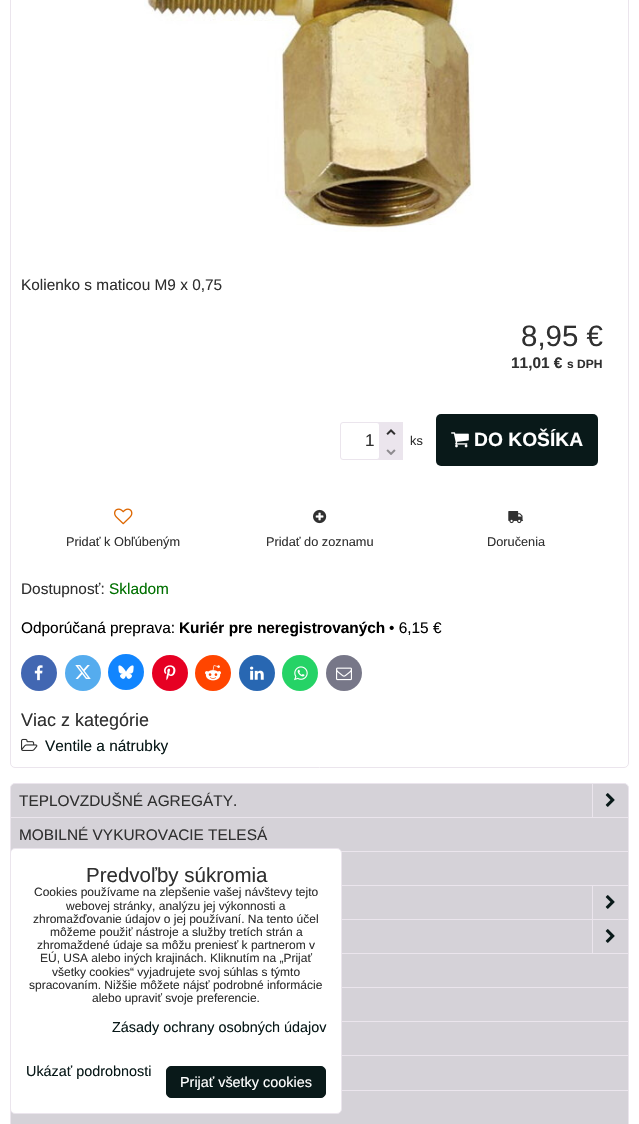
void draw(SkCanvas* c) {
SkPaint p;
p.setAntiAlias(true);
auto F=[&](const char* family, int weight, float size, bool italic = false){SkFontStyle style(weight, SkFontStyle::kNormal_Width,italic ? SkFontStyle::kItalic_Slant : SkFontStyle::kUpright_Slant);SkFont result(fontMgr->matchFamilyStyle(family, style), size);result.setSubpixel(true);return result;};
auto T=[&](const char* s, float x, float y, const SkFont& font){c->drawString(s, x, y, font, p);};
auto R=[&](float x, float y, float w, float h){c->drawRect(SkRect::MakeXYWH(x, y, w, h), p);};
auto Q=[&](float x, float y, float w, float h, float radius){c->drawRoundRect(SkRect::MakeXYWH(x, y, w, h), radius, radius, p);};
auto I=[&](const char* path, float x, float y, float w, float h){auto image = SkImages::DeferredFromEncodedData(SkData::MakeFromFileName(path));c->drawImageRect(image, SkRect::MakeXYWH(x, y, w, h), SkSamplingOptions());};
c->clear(0xffffffff);
p.setStroke(true);
p.setStrokeWidth(1);
p.setColor(0xffebe5ed);
c->drawRoundRect(SkRect::MakeXYWH(10.5,-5.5,618,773),4.5,4.5,p);
I("1.png",144,0,330,232);
auto f1 = F("Liberation Sans",400,15.4);
p.setStroke(false);
p.setColor(0xff303030);
T("Kolienko s maticou M9 x 0,75",21,290,f1);
auto f2 = F("Liberation Sans",400,29.5);
T("8,95 €",521,346,f2);
auto f3 = F("Liberation Sans",700,15.4);
T("11,01 €",511,368,f3);
auto f4 = F("Liberation Sans",700,12);
T("s DPH",567,368,f4);
p.setColor(0xffebe5ed);
R(377,422,26,38);
p.setColor(0xffffffff);
c->drawRoundRect(SkRect::MakeXYWH(340.5,422.5,39,37),2.5,2.5,p);
p.setStroke(true);
p.setColor(0xffebe5ed);
c->drawRoundRect(SkRect::MakeXYWH(340.5,422.5,39,37),2.5,2.5,p);
auto f5 = F("Liberation Sans",400,17);
p.setStroke(false);
p.setColor(0xff303030);
T("1",365,446,f5);
I("2.png",386,429,10,6);
I("3.png",386,449,10,6);
auto f6 = F("Liberation Sans",400,12.75);
T("ks",410,445,f6);
p.setColor(0xff091919);
Q(436,414,162,52,5);
I("4.png",451,432,18,16);
auto f7 = F("Liberation Sans",700,19.25);
p.setColor(0xffffffff);
T("DO KOŠÍKA",474,446,f7);
I("5.png",114,508,19,17);
p.setColor(0xff303030);
T("Pridať k Obľúbeným",66,546,f6);
I("6.png",313,509,14,15);
T("Pridať do zoznamu",266,546,f6);
I("7.png",508,511,16,13);
T("Doručenia",487,546,f6);
T("Dostupnosť:",21,594,f1);
p.setColor(0xff007000);
T("Skladom",109,594,f1);
p.setColor(0xff000000);
T("Odporúčaná preprava:",21,633,f1);
T("Kuriér pre neregistrovaných",179,633,f3);
T("• 6,15 €",389,633,f1);
p.setColor(0xff4267b2);
c->drawCircle(39,673,18,p);
I("8.png",34,665,9,16);
p.setColor(0xff55acee);
c->drawCircle(83,673,18,p);
I("9.png",75,665,16,14);
p.setColor(0xff1185fe);
c->drawCircle(126,672,18,p);
I("10.png",118,665,16,14);
p.setColor(0xffe60023);
c->drawCircle(170,673,18,p);
I("11.png",164,665,12,16);
p.setColor(0xffff4500);
c->drawCircle(213,673,18,p);
I("12.png",205,665,16,16);
p.setColor(0xff2867b2);
c->drawCircle(257,673,18,p);
I("13.png",250,666,14,14);
p.setColor(0xff25d366);
c->drawCircle(300,673,18,p);
I("14.png",294,666,14,15);
p.setColor(0xff777788);
c->drawCircle(344,673,18,p);
I("15.png",336,667,16,14);
auto f8 = F("Liberation Sans",400,18);
p.setColor(0xff303030);
T("Viac z kategórie",21,726,f8);
I("16.png",21,738,17,13);
p.setColor(0xff091919);
T("Ventile a nátrubky",45,751,f1);
p.setColor(0xffd5d2d8);
c->drawRoundRect(SkRect::MakeXYWH(10.5,783.5,618,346),4.5,4.5,p);
p.setStroke(true);
p.setColor(0xffebe5ed);
c->drawRoundRect(SkRect::MakeXYWH(10.5,783.5,618,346),4.5,4.5,p);
p.setStroke(false);
R(11,817,617,1);
p.setColor(0xff303030);
T("TEPLOVZDUŠNÉ AGREGÁTY.",19,806,f1);
p.setColor(0xffebe5ed);
R(592,784,1,33);
I("17.png",605,793,10,14);
R(341,851,287,1);
p.setColor(0xff303030);
T("MOBILNÉ VYKUROVACIE TELESÁ",19,840,f1);
p.setColor(0xffebe5ed);
R(342,885,286,1);
R(342,919,286,1);
R(592,886,1,33);
I("17.png",605,895,10,14);
R(342,953,286,1);
R(592,920,1,33);
I("17.png",605,929,10,14);
R(342,987,286,1);
R(342,1021,286,1);
R(342,1055,286,1);
R(342,1090,286,1);
p.setColor(0xffffffff);
c->drawRoundRect(SkRect::MakeXYWH(10.5,848.5,331,265),4.5,4.5,p);
p.setStroke(true);
p.setColor(0xffebe5ed);
c->drawRoundRect(SkRect::MakeXYWH(10.5,848.5,331,265),4.5,4.5,p);
auto f9 = F("Liberation Sans",400,20.5);
p.setStroke(false);
p.setColor(0xff303030);
T("Predvoľby súkromia",86,882,f9);
auto f10 = F("Liberation Sans",400,12);
T("Cookies používame na zlepšenie vašej návštevy tejto",34,896,f10);
T("webovej stránky, analýzu jej výkonnosti a",66,910,f10);
T("zhromažďovanie údajov o jej používaní. Na tento účel",33,923,f10);
T("môžeme použiť nástroje a služby tretích strán a",50,936,f10);
T("zhromaždené údaje sa môžu preniesť k partnerom v",37,949,f10);
T("EÚ, USA alebo iných krajinách. Kliknutím na „Prijať",40,962,f10);
T("všetky cookies“ vyjadrujete svoj súhlas s týmto",52,976,f10);
T("spracovaním. Nižšie môžete nájsť podrobné informácie",29,989,f10);
T("alebo upraviť svoje preferencie.",92,1002,f10);
auto f11 = F("Liberation Sans",400,14.4);
p.setColor(0xff091919);
T("Zásady ochrany osobných údajov",112,1032,f11);
T("Ukázať podrobnosti",26,1076,f11);
c->drawRoundRect(SkRect::MakeXYWH(166.5,1066.5,159,31),4.5,4.5,p);
p.setStroke(true);
c->drawRoundRect(SkRect::MakeXYWH(166.5,1066.5,159,31),4.5,4.5,p);
p.setStroke(false);
p.setColor(0xffffffff);
T("Prijať všetky cookies",180,1087,f11);
}
